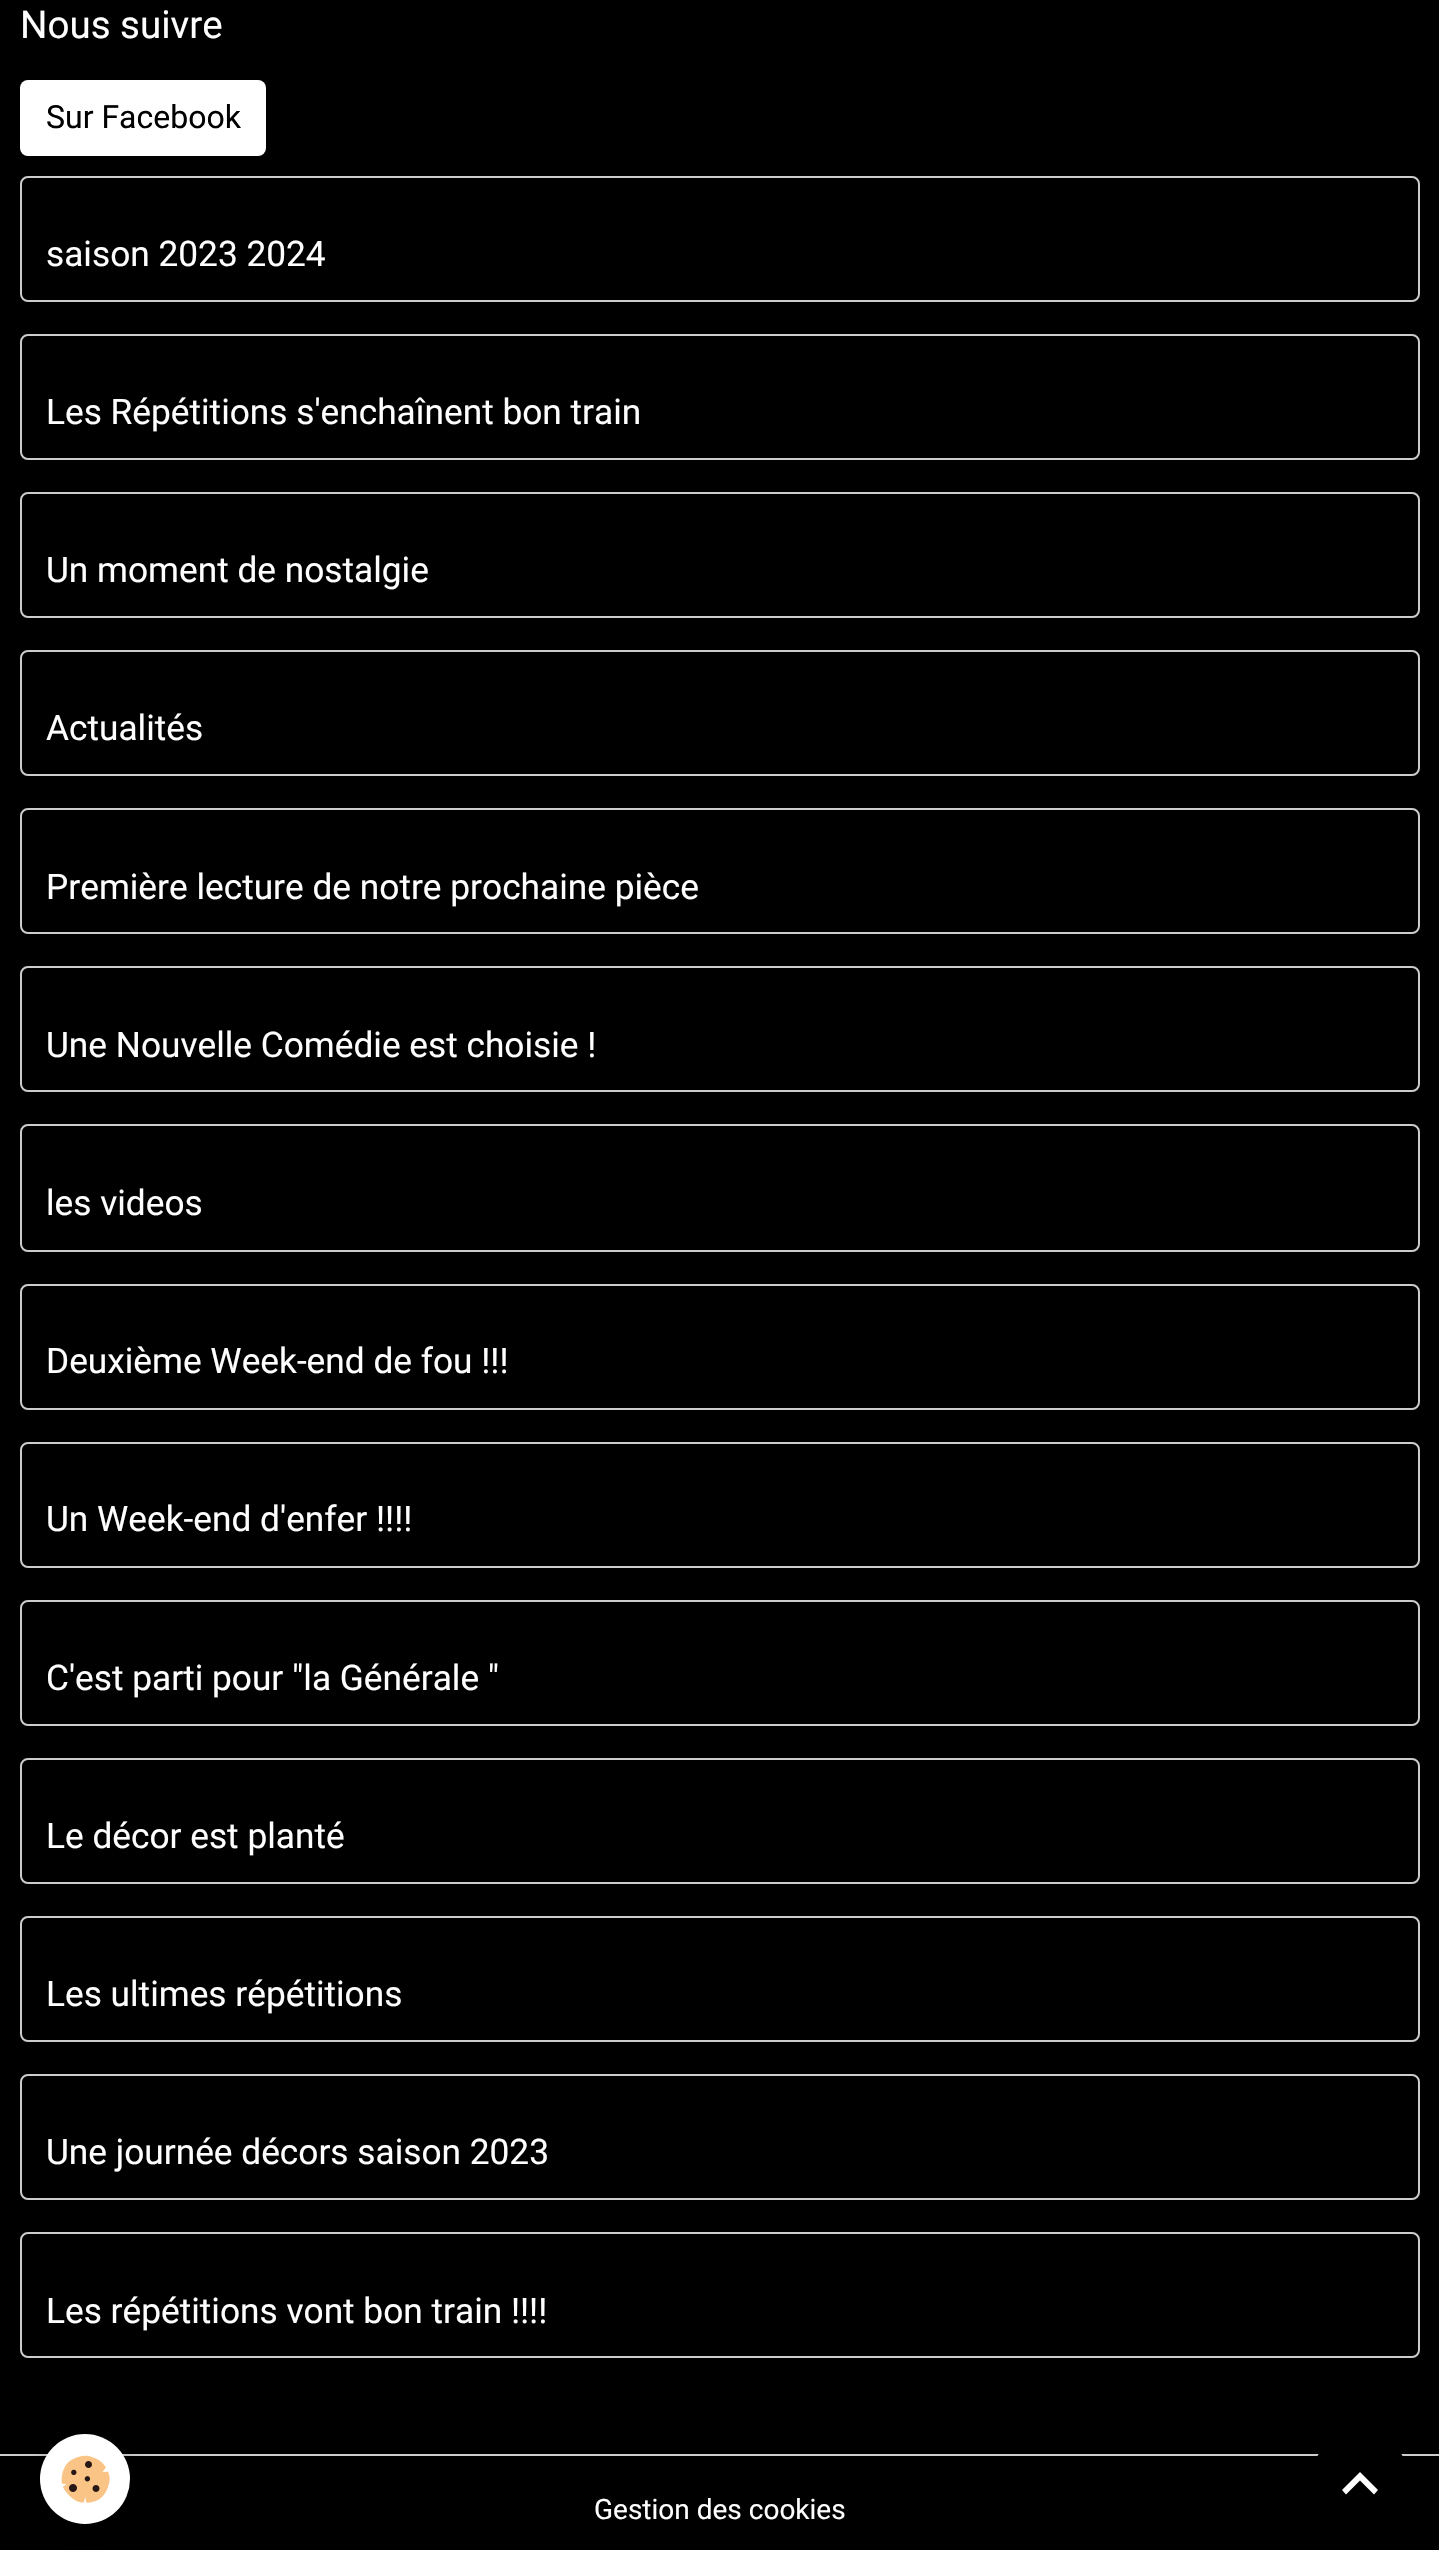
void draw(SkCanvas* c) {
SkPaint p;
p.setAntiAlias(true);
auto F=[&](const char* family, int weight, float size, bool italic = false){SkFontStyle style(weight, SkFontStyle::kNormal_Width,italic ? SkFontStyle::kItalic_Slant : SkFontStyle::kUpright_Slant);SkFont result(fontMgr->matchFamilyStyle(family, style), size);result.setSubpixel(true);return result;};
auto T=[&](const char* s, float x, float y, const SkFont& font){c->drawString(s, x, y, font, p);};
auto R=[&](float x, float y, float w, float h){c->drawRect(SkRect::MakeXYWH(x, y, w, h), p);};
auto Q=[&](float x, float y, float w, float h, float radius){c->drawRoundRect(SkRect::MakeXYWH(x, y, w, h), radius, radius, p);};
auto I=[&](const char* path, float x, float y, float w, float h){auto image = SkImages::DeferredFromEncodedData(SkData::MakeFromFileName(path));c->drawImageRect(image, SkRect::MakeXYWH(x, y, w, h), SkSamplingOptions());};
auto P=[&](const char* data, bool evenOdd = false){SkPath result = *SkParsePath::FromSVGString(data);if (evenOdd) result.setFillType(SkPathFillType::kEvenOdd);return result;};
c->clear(0xffffffff);
p.setColor(0xff000000);
R(0,0,1439,2550);
auto f1 = F("Roboto",400,38.5);
p.setColor(0xffffffff);
T("Nous suivre",20,38,f1);
Q(20,80,246,76,8);
auto f2 = F("Roboto",400,32);
p.setColor(0xff000000);
T("Sur Facebook",46,128,f2);
p.setStroke(true);
p.setStrokeWidth(2);
p.setColor(0xffcccccc);
c->drawRoundRect(SkRect::MakeXYWH(21,177,1398,124),7,7,p);
auto f3 = F("Roboto",400,35.25);
p.setStroke(false);
p.setColor(0xffffffff);
T("saison 2023 2024",46,266,f3);
p.setStroke(true);
p.setColor(0xffcccccc);
c->drawRoundRect(SkRect::MakeXYWH(21,335,1398,124),7,7,p);
p.setStroke(false);
p.setColor(0xffffffff);
T("Les Répétitions s'enchaînent bon train",46,424,f3);
p.setStroke(true);
p.setColor(0xffcccccc);
c->drawRoundRect(SkRect::MakeXYWH(21,493,1398,124),7,7,p);
p.setStroke(false);
p.setColor(0xffffffff);
T("Un moment de nostalgie",46,582,f3);
p.setStroke(true);
p.setColor(0xffcccccc);
c->drawRoundRect(SkRect::MakeXYWH(21,651,1398,124),7,7,p);
p.setStroke(false);
p.setColor(0xffffffff);
T("Actualités",46,740,f3);
p.setStroke(true);
p.setColor(0xffcccccc);
c->drawRoundRect(SkRect::MakeXYWH(21,809,1398,124),7,7,p);
p.setStroke(false);
p.setColor(0xffffffff);
T("Première lecture de notre prochaine pièce",46,899,f3);
p.setStroke(true);
p.setColor(0xffcccccc);
c->drawRoundRect(SkRect::MakeXYWH(21,967,1398,124),7,7,p);
p.setStroke(false);
p.setColor(0xffffffff);
T("Une Nouvelle Comédie est choisie !",46,1057,f3);
p.setStroke(true);
p.setColor(0xffcccccc);
c->drawRoundRect(SkRect::MakeXYWH(21,1125,1398,126),7,7,p);
p.setStroke(false);
p.setColor(0xffffffff);
T("les videos",46,1215,f3);
p.setStroke(true);
p.setColor(0xffcccccc);
c->drawRoundRect(SkRect::MakeXYWH(21,1285,1398,124),7,7,p);
p.setStroke(false);
p.setColor(0xffffffff);
T("Deuxième Week-end de fou !!!",46,1373,f3);
p.setStroke(true);
p.setColor(0xffcccccc);
c->drawRoundRect(SkRect::MakeXYWH(21,1443,1398,124),7,7,p);
p.setStroke(false);
p.setColor(0xffffffff);
T("Un Week-end d'enfer !!!!",46,1531,f3);
p.setStroke(true);
p.setColor(0xffcccccc);
c->drawRoundRect(SkRect::MakeXYWH(21,1601,1398,124),7,7,p);
p.setStroke(false);
p.setColor(0xffffffff);
T("C'est parti pour \"la Générale \"",46,1690,f3);
p.setStroke(true);
p.setColor(0xffcccccc);
c->drawRoundRect(SkRect::MakeXYWH(21,1759,1398,124),7,7,p);
p.setStroke(false);
p.setColor(0xffffffff);
T("Le décor est planté",46,1848,f3);
p.setStroke(true);
p.setColor(0xffcccccc);
c->drawRoundRect(SkRect::MakeXYWH(21,1917,1398,124),7,7,p);
p.setStroke(false);
p.setColor(0xffffffff);
T("Les ultimes répétitions",46,2006,f3);
p.setStroke(true);
p.setColor(0xffcccccc);
c->drawRoundRect(SkRect::MakeXYWH(21,2075,1398,124),7,7,p);
p.setStroke(false);
p.setColor(0xffffffff);
T("Une journée décors saison 2023",46,2164,f3);
p.setStroke(true);
p.setColor(0xffcccccc);
c->drawRoundRect(SkRect::MakeXYWH(21,2233,1398,124),7,7,p);
p.setStroke(false);
p.setColor(0xffffffff);
T("Les répétitions vont bon train !!!!",46,2323,f3);
p.setColor(0xffcccccc);
R(0,2454,1439,2);
auto f4 = F("Roboto",400,28);
p.setColor(0xffffffff);
T("Gestion des cookies",594,2519,f4);
p.setColor(0x3d000000);
p.setMaskFilter(SkMaskFilter::MakeBlur(kNormal_SkBlurStyle, 10));
c->drawRoundRect(SkRect::MakeXYWH(40,2440,90,90),45,45,p);
p.setMaskFilter(nullptr);
p.setColor(0xffffffff);
c->drawCircle(85,2479,45,p);
I("1.png",61,2455,49,48);
p.setColor(0xff000000);
c->drawCircle(1360,2482,50,p);
p.setColor(0xffffffff);
c->drawPath(P("M1360 2472l18 18l-4 4.5l-14-14l-14 14l-4-4.5z"),p);
}
